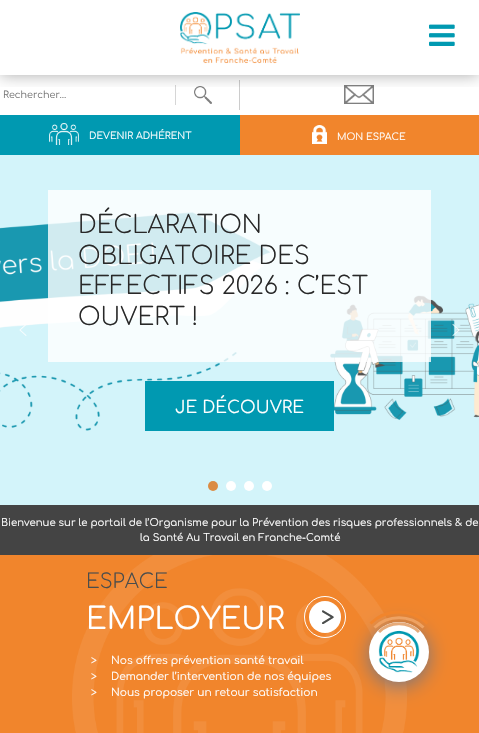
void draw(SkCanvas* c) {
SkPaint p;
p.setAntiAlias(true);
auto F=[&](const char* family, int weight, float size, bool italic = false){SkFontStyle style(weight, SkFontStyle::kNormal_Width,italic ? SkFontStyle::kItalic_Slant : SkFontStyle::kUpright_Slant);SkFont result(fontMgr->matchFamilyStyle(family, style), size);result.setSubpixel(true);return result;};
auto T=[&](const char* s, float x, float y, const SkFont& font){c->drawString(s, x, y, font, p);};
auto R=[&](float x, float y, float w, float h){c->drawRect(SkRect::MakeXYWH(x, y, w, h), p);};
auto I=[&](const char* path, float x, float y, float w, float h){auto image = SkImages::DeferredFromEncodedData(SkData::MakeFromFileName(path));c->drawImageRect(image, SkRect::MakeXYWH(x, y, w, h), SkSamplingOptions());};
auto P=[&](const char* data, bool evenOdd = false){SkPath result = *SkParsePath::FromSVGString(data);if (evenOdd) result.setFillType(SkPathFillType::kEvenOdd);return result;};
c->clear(0xffffffff);
p.setColor(0xffd6d6d6);
R(175,85,1,20);
I("3.png",194,86,18,18);
p.setColor(0xffcccccc);
R(239,80,1,30);
I("4.png",344,85,30,19);
c->save();
c->clipRect(SkRect::MakeXYWH(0,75,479,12));
p.setColor(0x54000000);
p.setMaskFilter(SkMaskFilter::MakeBlur(kNormal_SkBlurStyle, 7.5));
c->drawRect(SkRect::MakeXYWH(0,0,479,75),p);
p.setMaskFilter(nullptr);
c->restore();
I("1.png",180,12,120,52);
I("2.png",429,24,26,22);
auto f1 = F("Comfortaa",400,9.6);
p.setColor(0xff757575);
T("Rechercher…",3,98,f1);
p.setColor(0xff0099b1);
R(0,115,240,40);
I("5.png",49,123,30,22);
p.setColor(0xffffffff);
T("DEVENIR ADHÉRENT",89,139,f1);
p.setColor(0xfff1852c);
R(240,115,239,40);
I("6.png",312,125,15,19);
p.setColor(0xffffffff);
T("MON ESPACE",337,140,f1);
I("8.png",0,155,479,350);
I("7.png",19,325,8,11);
p.setColor(0xccffffff);
R(48,190,383,172);
auto f2 = F("Comfortaa",300,24.5);
p.setColor(0xff282828);
T("DÉCLARATION",78,233,f2);
T("OBLIGATOIRE DES",78,264,f2);
T("EFFECTIFS 2026 : C’EST",78,294,f2);
T("OUVERT !",78,325,f2);
p.setColor(0xff0099b1);
R(145,381,189,50);
auto f3 = F("Comfortaa",400,17);
p.setColor(0xffffffff);
T("JE DÉCOUVRE",175,413,f3);
I("9.png",452,324,8,12);
p.setColor(0xffdb8b42);
c->drawCircle(213,486,5,p);
p.setColor(0xffffffff);
c->drawCircle(231,486,5,p);
c->drawCircle(249,486,5,p);
c->drawCircle(267,486,5,p);
p.setColor(0xff444444);
R(0,505,479,50);
auto f4 = F("Comfortaa",400,10.1);
p.setColor(0xffffffff);
T("Bienvenue sur le portail de l’Organisme pour la Prévention des risques professionnels & de",1,526,f4);
T("la Santé Au Travail en Franche-Comté",140,541,f4);
p.setColor(0xfff1852c);
R(0,555,479,178);
I("10.png",72,555,335,178);
auto f5 = F("Comfortaa",300,20);
p.setColor(0xff4b4d4c);
T("ESPACE",86,588,f5);
auto f6 = F("Comfortaa",400,30);
p.setColor(0xffffffff);
T("EMPLOYEUR",86,629,f6);
p.setStroke(true);
p.setStrokeWidth(1);
c->drawCircle(325,617,20.5,p);
p.setStroke(false);
c->drawCircle(325,617,16,p);
auto f7 = F("Comfortaa",400,25);
p.setColor(0xff4b4d4c);
T(">",321,626,f7);
auto f8 = F("Comfortaa",400,10.6);
p.setColor(0xffffffff);
T(">",91,664,f8);
T("Nos offres prévention santé travail",111,664,f8);
T(">",91,680,f8);
T("Demander l’intervention de nos équipes",111,680,f8);
T(">",91,696,f8);
T("Nous proposer un retour satisfaction",111,696,f8);
p.setColor(0xff767580);
p.setMaskFilter(SkMaskFilter::MakeBlur(kNormal_SkBlurStyle, 10));
c->drawRoundRect(SkRect::MakeXYWH(369,626,60,60),30,30,p);
p.setMaskFilter(nullptr);
p.setColor(0xffffffff);
c->drawCircle(399,652,30,p);
I("11.png",378,630,42,43);
p.setStroke(true);
p.setStrokeWidth(3);
p.setColor(0xffe6aa79);
c->drawPath(P("M379 632c11-11 29-11 40 0"),p);
p.setColor(0xffeea263);
c->drawPath(P("M374.5 627.5c13.5-13 35.5-13 49 0"),p);
p.setColor(0xfff1852c);
c->drawPath(P("M370.5 623.5c15.5-15.5 41.5-15.5 57 0"),p);
}
